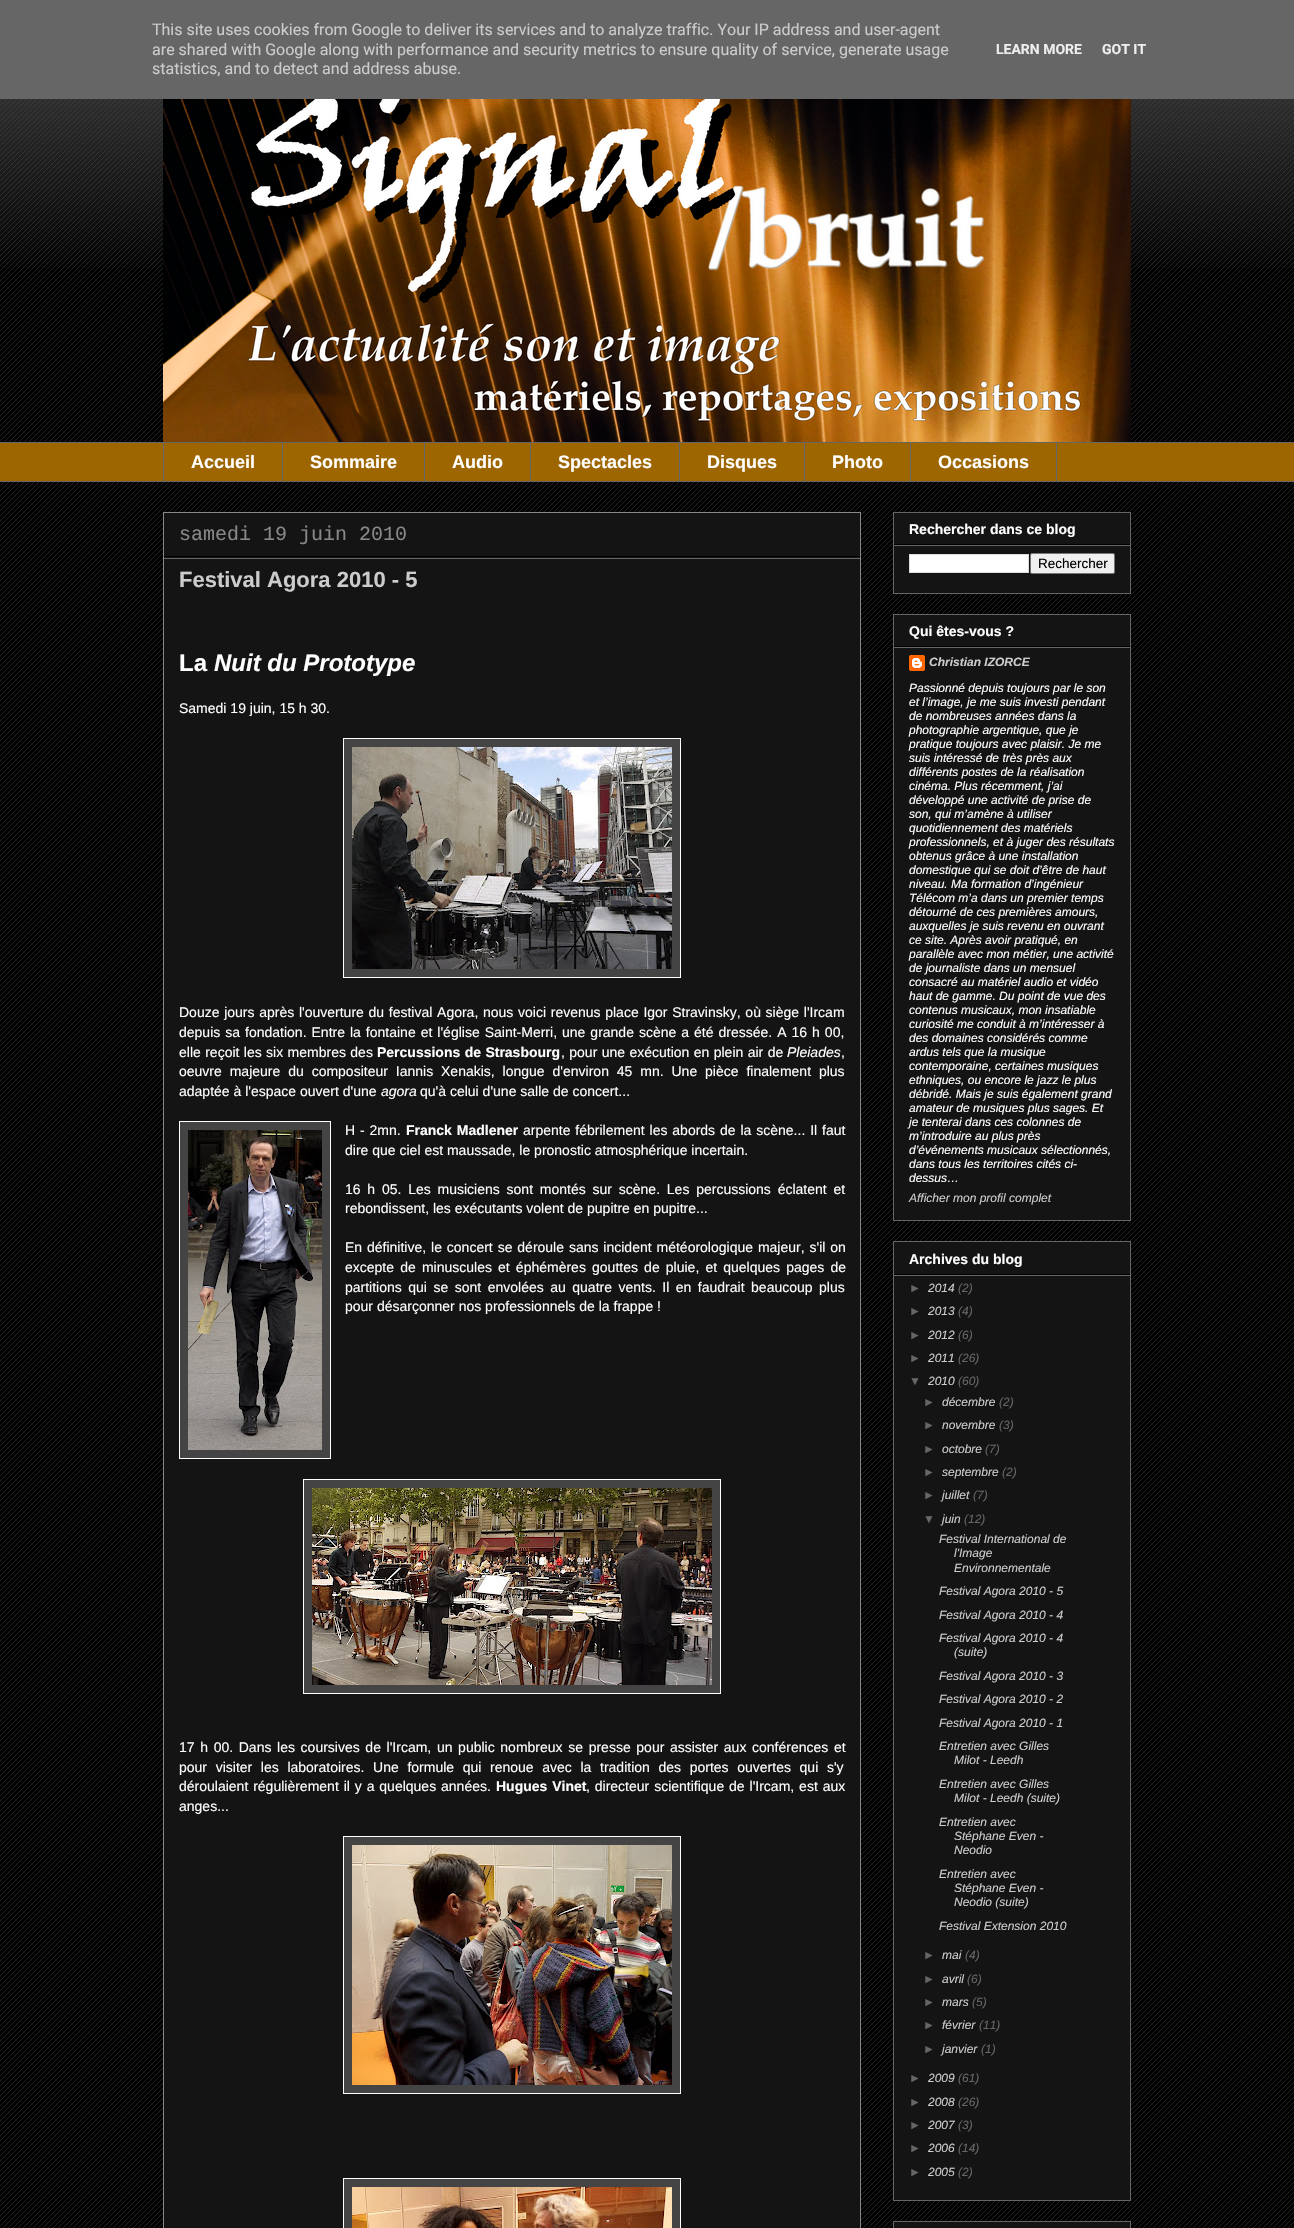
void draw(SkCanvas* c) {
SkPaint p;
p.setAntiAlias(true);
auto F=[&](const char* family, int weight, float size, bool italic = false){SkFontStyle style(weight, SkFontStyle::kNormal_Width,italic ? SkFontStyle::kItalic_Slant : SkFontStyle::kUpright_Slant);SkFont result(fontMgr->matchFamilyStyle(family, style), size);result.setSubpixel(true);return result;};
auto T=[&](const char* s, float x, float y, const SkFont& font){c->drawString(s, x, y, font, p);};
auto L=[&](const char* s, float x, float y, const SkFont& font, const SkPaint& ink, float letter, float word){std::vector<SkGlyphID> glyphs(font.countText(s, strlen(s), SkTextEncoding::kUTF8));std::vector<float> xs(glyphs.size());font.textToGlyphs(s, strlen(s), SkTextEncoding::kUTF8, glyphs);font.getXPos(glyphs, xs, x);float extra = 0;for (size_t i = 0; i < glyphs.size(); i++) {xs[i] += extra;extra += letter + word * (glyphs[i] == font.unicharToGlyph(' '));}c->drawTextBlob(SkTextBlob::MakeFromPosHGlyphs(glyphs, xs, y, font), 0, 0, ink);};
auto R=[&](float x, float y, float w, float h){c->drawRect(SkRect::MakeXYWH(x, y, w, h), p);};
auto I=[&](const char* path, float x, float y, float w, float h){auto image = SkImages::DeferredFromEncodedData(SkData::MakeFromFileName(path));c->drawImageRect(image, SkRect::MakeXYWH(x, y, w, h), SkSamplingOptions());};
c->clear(0xff000000);
I("1.png",0,99,1294,2129);
p.setColor(0xff666666);
R(0,0,1294,99);
auto f1 = F("Roboto",400,16);
p.setColor(0xffcccccc);
T("This site uses cookies from Google to deliver its services and to analyze traffic. Your IP address and user-agent",152,35,f1);
T("are shared with Google along with performance and security metrics to ensure quality of service, generate usage",152,55,f1);
T("statistics, and to detect and address abuse.",152,74,f1);
auto f2 = F("Roboto",700,14);
p.setColor(0xffeeeeee);
T("LEARN MORE",996,54,f2);
T("GOT IT",1102,54,f2);
I("2.png",0,99,1294,169);
I("3.png",163,99,968,343);
p.setColor(0xff9d6600);
R(0,443,1294,38);
p.setColor(0xff666666);
R(0,442,1294,1);
R(163,442,1,40);
auto f3 = F("Liberation Sans",700,18);
p.setColor(0xffffffff);
T("Accueil",191,468,f3);
p.setColor(0xff666666);
R(282,442,1,40);
p.setColor(0xffffffff);
T("Sommaire",310,468,f3);
p.setColor(0xff666666);
R(424,442,1,40);
p.setColor(0xffffffff);
T("Audio",452,468,f3);
p.setColor(0xff666666);
R(530,442,1,40);
p.setColor(0xffffffff);
T("Spectacles",558,468,f3);
p.setColor(0xff666666);
R(679,442,1,40);
p.setColor(0xffffffff);
T("Disques",707,468,f3);
p.setColor(0xff666666);
R(804,442,1,40);
p.setColor(0xffffffff);
T("Photo",832,468,f3);
p.setStroke(true);
p.setStrokeWidth(1);
p.setColor(0xff666666);
c->drawRect(SkRect::MakeXYWH(910.5,442.5,146,39),p);
p.setStroke(false);
p.setColor(0xffffffff);
T("Occasions",938,468,f3);
p.setColor(0xff666666);
R(0,481,1294,1);
p.setColor(0xff141414);
c->drawRect(SkRect::MakeXYWH(163.5,512.5,697,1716),p);
p.setStroke(true);
p.setColor(0xff888888);
c->drawRect(SkRect::MakeXYWH(163.5,512.5,697,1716),p);
p.setStroke(false);
p.setColor(0xff000000);
R(164,556,696,1);
auto f4 = F("Liberation Mono",400,20);
p.setColor(0xff888888);
T("samedi 19 juin 2010",179,540,f4);
p.setColor(0xff666666);
R(164,558,696,1);
auto f5 = F("Liberation Sans",700,22);
p.setColor(0xffcccccc);
T("Festival Agora 2010 - 5",179,587,f5);
auto f6 = F("Liberation Sans",700,24);
p.setColor(0xffffffff);
T("La",179,671,f6);
auto f7 = F("Liberation Sans",700,24,true);
T("Nuit du Prototype",214,671,f7);
auto f8 = F("Liberation Sans",400,14);
T("Samedi 19 juin, 15 h 30.",179,713,f8);
p.setColor(0xff444444);
c->drawRect(SkRect::MakeXYWH(343.5,738.5,337,239),p);
p.setStroke(true);
p.setColor(0xffffffff);
c->drawRect(SkRect::MakeXYWH(343.5,738.5,337,239),p);
I("4.png",352,747,320,222);
p.setStroke(false);
L("Douze jours après l'ouverture du festival Agora, nous voici revenus place Igor Stravinsky, où siège l'Ircam",179,1017,f8,p,0,.8);
L("depuis sa fondation. Entre la fontaine et l'église Saint-Merri, une grande scène a été dressée. A 16 h 00,",179,1037,f8,p,0,1.1);
L("elle reçoit les six membres des",179,1057,f8,p,0,.5);
auto f9 = F("Liberation Sans",700,14);
L("Percussions de Strasbourg",377,1057,f9,p,0,.5);
L(", pour une exécution en plein air de",561,1057,f8,p,0,.5);
auto f10 = F("Liberation Sans",400,14,true);
T("Pleiades",787,1057,f10);
T(",",841,1057,f8);
L("oeuvre majeure du compositeur Iannis Xenakis, longue d'environ 45 mn. Une pièce finalement plus",179,1076,f8,p,0,4);
T("adaptée à l'espace ouvert d'une",179,1096,f8);
T("agora",381,1096,f10);
T("qu'à celui d'une salle de concert...",420,1096,f8);
p.setColor(0xff444444);
c->drawRect(SkRect::MakeXYWH(179.5,1121.5,151,337),p);
p.setStroke(true);
p.setColor(0xffffffff);
c->drawRect(SkRect::MakeXYWH(179.5,1121.5,151,337),p);
I("5.png",188,1130,134,320);
p.setStroke(false);
L("H - 2mn.",345,1135,f8,p,0,1);
L("Franck Madlener",406,1135,f9,p,0,1);
L("arpente fébrilement les abords de la scène... Il faut",523,1135,f8,p,0,1);
T("dire que ciel est maussade, le pronostic atmosphérique incertain.",345,1155,f8);
L("16 h 05. Les musiciens sont montés sur scène. Les percussions éclatent et",345,1194,f8,p,0,2.9);
T("rebondissent, les exécutants volent de pupitre en pupitre...",345,1213,f8);
L("En définitive, le concert se déroule sans incident météorologique majeur, s'il on",345,1252,f8,p,0,1);
L("excepte de minuscules et éphémères gouttes de pluie, et quelques pages de",345,1272,f8,p,0,2.25);
L("partitions qui se sont envolées au quatre vents. Il en faudrait beaucoup plus",345,1292,f8,p,0,2.6);
T("pour désarçonner nos professionnels de la frappe !",345,1311,f8);
p.setColor(0xff444444);
c->drawRect(SkRect::MakeXYWH(303.5,1479.5,417,214),p);
p.setStroke(true);
p.setColor(0xffffffff);
c->drawRect(SkRect::MakeXYWH(303.5,1479.5,417,214),p);
I("6.png",312,1488,400,197);
p.setStroke(false);
L("17 h 00. Dans les coursives de l'Ircam, un public nombreux se presse pour assister aux conférences et",179,1752,f8,p,0,1.75);
L("pour visiter les laboratoires. Une formule qui renoue avec la tradition des portes ouvertes qui s'y",179,1772,f8,p,0,4.75);
L("déroulaient régulièrement il y a quelques années.",179,1791,f8,p,0,1);
L("Hugues Vinet",496,1791,f9,p,0,1);
L(", directeur scientifique de l'Ircam, est aux",586,1791,f8,p,0,1);
T("anges...",179,1811,f8);
p.setColor(0xff444444);
c->drawRect(SkRect::MakeXYWH(343.5,1836.5,337,257),p);
p.setStroke(true);
p.setColor(0xffffffff);
c->drawRect(SkRect::MakeXYWH(343.5,1836.5,337,257),p);
I("7.png",352,1845,320,240);
p.setStroke(false);
p.setColor(0xff444444);
c->drawRect(SkRect::MakeXYWH(343.5,2178.5,337,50),p);
p.setStroke(true);
p.setColor(0xffffffff);
c->drawRect(SkRect::MakeXYWH(343.5,2178.5,337,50),p);
I("8.png",352,2187,320,41);
p.setStroke(false);
p.setColor(0xff141414);
c->drawRect(SkRect::MakeXYWH(893.5,512.5,237,81),p);
p.setStroke(true);
p.setColor(0xff666666);
c->drawRect(SkRect::MakeXYWH(893.5,512.5,237,81),p);
p.setStroke(false);
p.setColor(0xff000000);
R(894,544,236,1);
p.setColor(0xffffffff);
T("Rechercher dans ce blog",909,534,f9);
p.setColor(0xff666666);
R(894,545,236,1);
p.setColor(0xffffffff);
c->drawRect(SkRect::MakeXYWH(909.5,554.5,119,18),p);
p.setStroke(true);
p.setColor(0xffdddddd);
c->drawRect(SkRect::MakeXYWH(909.5,554.5,119,18),p);
p.setStroke(false);
p.setColor(0xffefefef);
c->drawRoundRect(SkRect::MakeXYWH(1030.5,553.5,84,20),1.5,1.5,p);
p.setStroke(true);
p.setColor(0xff767676);
c->drawRoundRect(SkRect::MakeXYWH(1030.5,553.5,84,20),1.5,1.5,p);
auto f11 = F("Liberation Sans",400,13.5);
p.setStroke(false);
p.setColor(0xff000000);
T("Rechercher",1038,568,f11);
p.setColor(0xff141414);
c->drawRect(SkRect::MakeXYWH(893.5,614.5,237,606),p);
p.setStroke(true);
p.setColor(0xff666666);
c->drawRect(SkRect::MakeXYWH(893.5,614.5,237,606),p);
p.setStroke(false);
p.setColor(0xff000000);
R(894,646,236,1);
p.setColor(0xffffffff);
T("Qui êtes-vous ?",909,636,f9);
p.setColor(0xff666666);
R(894,647,236,1);
I("9.png",909,655,16,16);
auto f12 = F("Liberation Sans",700,12,true);
p.setColor(0xffcccccc);
T("Christian IZORCE",929,666,f12);
auto f13 = F("Liberation Sans",400,12,true);
p.setColor(0xffffffff);
T("Passionné depuis toujours par le son",909,692,f13);
T("et l’image, je me suis investi pendant",909,706,f13);
T("de nombreuses années dans la",909,720,f13);
T("photographie argentique, que je",909,734,f13);
T("pratique toujours avec plaisir. Je me",909,748,f13);
T("suis intéressé de très près aux",909,762,f13);
T("différents postes de la réalisation",909,776,f13);
T("cinéma. Plus récemment, j’ai",909,790,f13);
T("développé une activité de prise de",909,804,f13);
T("son, qui m’amène à utiliser",909,818,f13);
T("quotidiennement des matériels",909,832,f13);
T("professionnels, et à juger des résultats",909,846,f13);
T("obtenus grâce à une installation",909,860,f13);
T("domestique qui se doit d’être de haut",909,874,f13);
T("niveau. Ma formation d’ingénieur",909,888,f13);
T("Télécom m’a dans un premier temps",909,902,f13);
T("détourné de ces premières amours,",909,916,f13);
T("auxquelles je suis revenu en ouvrant",909,930,f13);
T("ce site. Après avoir pratiqué, en",909,944,f13);
T("parallèle avec mon métier, une activité",909,958,f13);
T("de journaliste dans un mensuel",909,972,f13);
T("consacré au matériel audio et vidéo",909,986,f13);
T("haut de gamme. Du point de vue des",909,1000,f13);
T("contenus musicaux, mon insatiable",909,1014,f13);
T("curiosité me conduit à m’intéresser à",909,1028,f13);
T("des domaines considérés comme",909,1042,f13);
T("ardus tels que la musique",909,1056,f13);
T("contemporaine, certaines musiques",909,1070,f13);
T("ethniques, ou encore le jazz le plus",909,1084,f13);
T("débridé. Mais je suis également grand",909,1098,f13);
T("amateur de musiques plus sages. Et",909,1112,f13);
T("je tenterai dans ces colonnes de",909,1126,f13);
T("m’introduire au plus près",909,1140,f13);
T("d’événements musicaux sélectionnés,",909,1154,f13);
T("dans tous les territoires cités ci-",909,1168,f13);
T("dessus…",909,1182,f13);
p.setColor(0xffcccccc);
T("Afficher mon profil complet",909,1202,f13);
p.setColor(0xff141414);
c->drawRect(SkRect::MakeXYWH(893.5,1241.5,237,959),p);
p.setStroke(true);
p.setColor(0xff666666);
c->drawRect(SkRect::MakeXYWH(893.5,1241.5,237,959),p);
p.setStroke(false);
p.setColor(0xff000000);
R(894,1274,236,1);
p.setColor(0xffffffff);
T("Archives du blog",909,1264,f9);
p.setColor(0xff666666);
R(894,1275,236,1);
T("►",909,1292,f13);
p.setColor(0xffcccccc);
T("2014",928,1292,f13);
p.setColor(0xff666666);
T("(2)",958,1292,f13);
T("►",909,1315,f13);
p.setColor(0xffcccccc);
T("2013",928,1315,f13);
p.setColor(0xff666666);
T("(4)",958,1315,f13);
T("►",909,1339,f13);
p.setColor(0xffcccccc);
T("2012",928,1339,f13);
p.setColor(0xff666666);
T("(6)",958,1339,f13);
T("►",909,1362,f13);
p.setColor(0xffcccccc);
T("2011",928,1362,f13);
p.setColor(0xff666666);
T("(26)",958,1362,f13);
T("▼",909,1385,f13);
p.setColor(0xffcccccc);
T("2010",928,1385,f13);
p.setColor(0xff666666);
T("(60)",958,1385,f13);
T("►",923,1406,f13);
p.setColor(0xffcccccc);
T("décembre",942,1406,f13);
p.setColor(0xff666666);
T("(2)",999,1406,f13);
T("►",923,1429,f13);
p.setColor(0xffcccccc);
T("novembre",942,1429,f13);
p.setColor(0xff666666);
T("(3)",999,1429,f13);
T("►",923,1453,f13);
p.setColor(0xffcccccc);
T("octobre",942,1453,f13);
p.setColor(0xff666666);
T("(7)",985,1453,f13);
T("►",923,1476,f13);
p.setColor(0xffcccccc);
T("septembre",942,1476,f13);
p.setColor(0xff666666);
T("(2)",1002,1476,f13);
T("►",923,1499,f13);
p.setColor(0xffcccccc);
T("juillet",942,1499,f13);
p.setColor(0xff666666);
T("(7)",973,1499,f13);
T("▼",923,1523,f13);
p.setColor(0xffcccccc);
T("juin",942,1523,f13);
p.setColor(0xff666666);
T("(12)",964,1523,f13);
p.setColor(0xffcccccc);
T("Festival International de",939,1543,f13);
T("l'Image",954,1557,f13);
T("Environnementale",954,1572,f13);
T("Festival Agora 2010 - 5",939,1595,f13);
T("Festival Agora 2010 - 4",939,1619,f13);
T("Festival Agora 2010 - 4",939,1642,f13);
T("(suite)",954,1656,f13);
T("Festival Agora 2010 - 3",939,1680,f13);
T("Festival Agora 2010 - 2",939,1703,f13);
T("Festival Agora 2010 - 1",939,1727,f13);
T("Entretien avec Gilles",939,1750,f13);
T("Milot - Leedh",954,1764,f13);
T("Entretien avec Gilles",939,1788,f13);
T("Milot - Leedh (suite)",954,1802,f13);
T("Entretien avec",939,1826,f13);
T("Stéphane Even -",954,1840,f13);
T("Neodio",954,1854,f13);
T("Entretien avec",939,1878,f13);
T("Stéphane Even -",954,1892,f13);
T("Neodio (suite)",954,1906,f13);
T("Festival Extension 2010",939,1930,f13);
p.setColor(0xff666666);
T("►",923,1959,f13);
p.setColor(0xffcccccc);
T("mai",942,1959,f13);
p.setColor(0xff666666);
T("(4)",965,1959,f13);
T("►",923,1983,f13);
p.setColor(0xffcccccc);
T("avril",942,1983,f13);
p.setColor(0xff666666);
T("(6)",967,1983,f13);
T("►",923,2006,f13);
p.setColor(0xffcccccc);
T("mars",942,2006,f13);
p.setColor(0xff666666);
T("(5)",972,2006,f13);
T("►",923,2029,f13);
p.setColor(0xffcccccc);
T("février",942,2029,f13);
p.setColor(0xff666666);
T("(11)",979,2029,f13);
T("►",923,2053,f13);
p.setColor(0xffcccccc);
T("janvier",942,2053,f13);
p.setColor(0xff666666);
T("(1)",981,2053,f13);
T("►",909,2082,f13);
p.setColor(0xffcccccc);
T("2009",928,2082,f13);
p.setColor(0xff666666);
T("(61)",958,2082,f13);
T("►",909,2106,f13);
p.setColor(0xffcccccc);
T("2008",928,2106,f13);
p.setColor(0xff666666);
T("(26)",958,2106,f13);
T("►",909,2129,f13);
p.setColor(0xffcccccc);
T("2007",928,2129,f13);
p.setColor(0xff666666);
T("(3)",958,2129,f13);
T("►",909,2152,f13);
p.setColor(0xffcccccc);
T("2006",928,2152,f13);
p.setColor(0xff666666);
T("(14)",958,2152,f13);
T("►",909,2176,f13);
p.setColor(0xffcccccc);
T("2005",928,2176,f13);
p.setColor(0xff666666);
T("(2)",958,2176,f13);
p.setColor(0xff141414);
c->drawRect(SkRect::MakeXYWH(893.5,2221.5,237,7),p);
p.setStroke(true);
p.setColor(0xff666666);
c->drawRect(SkRect::MakeXYWH(893.5,2221.5,237,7),p);
}
